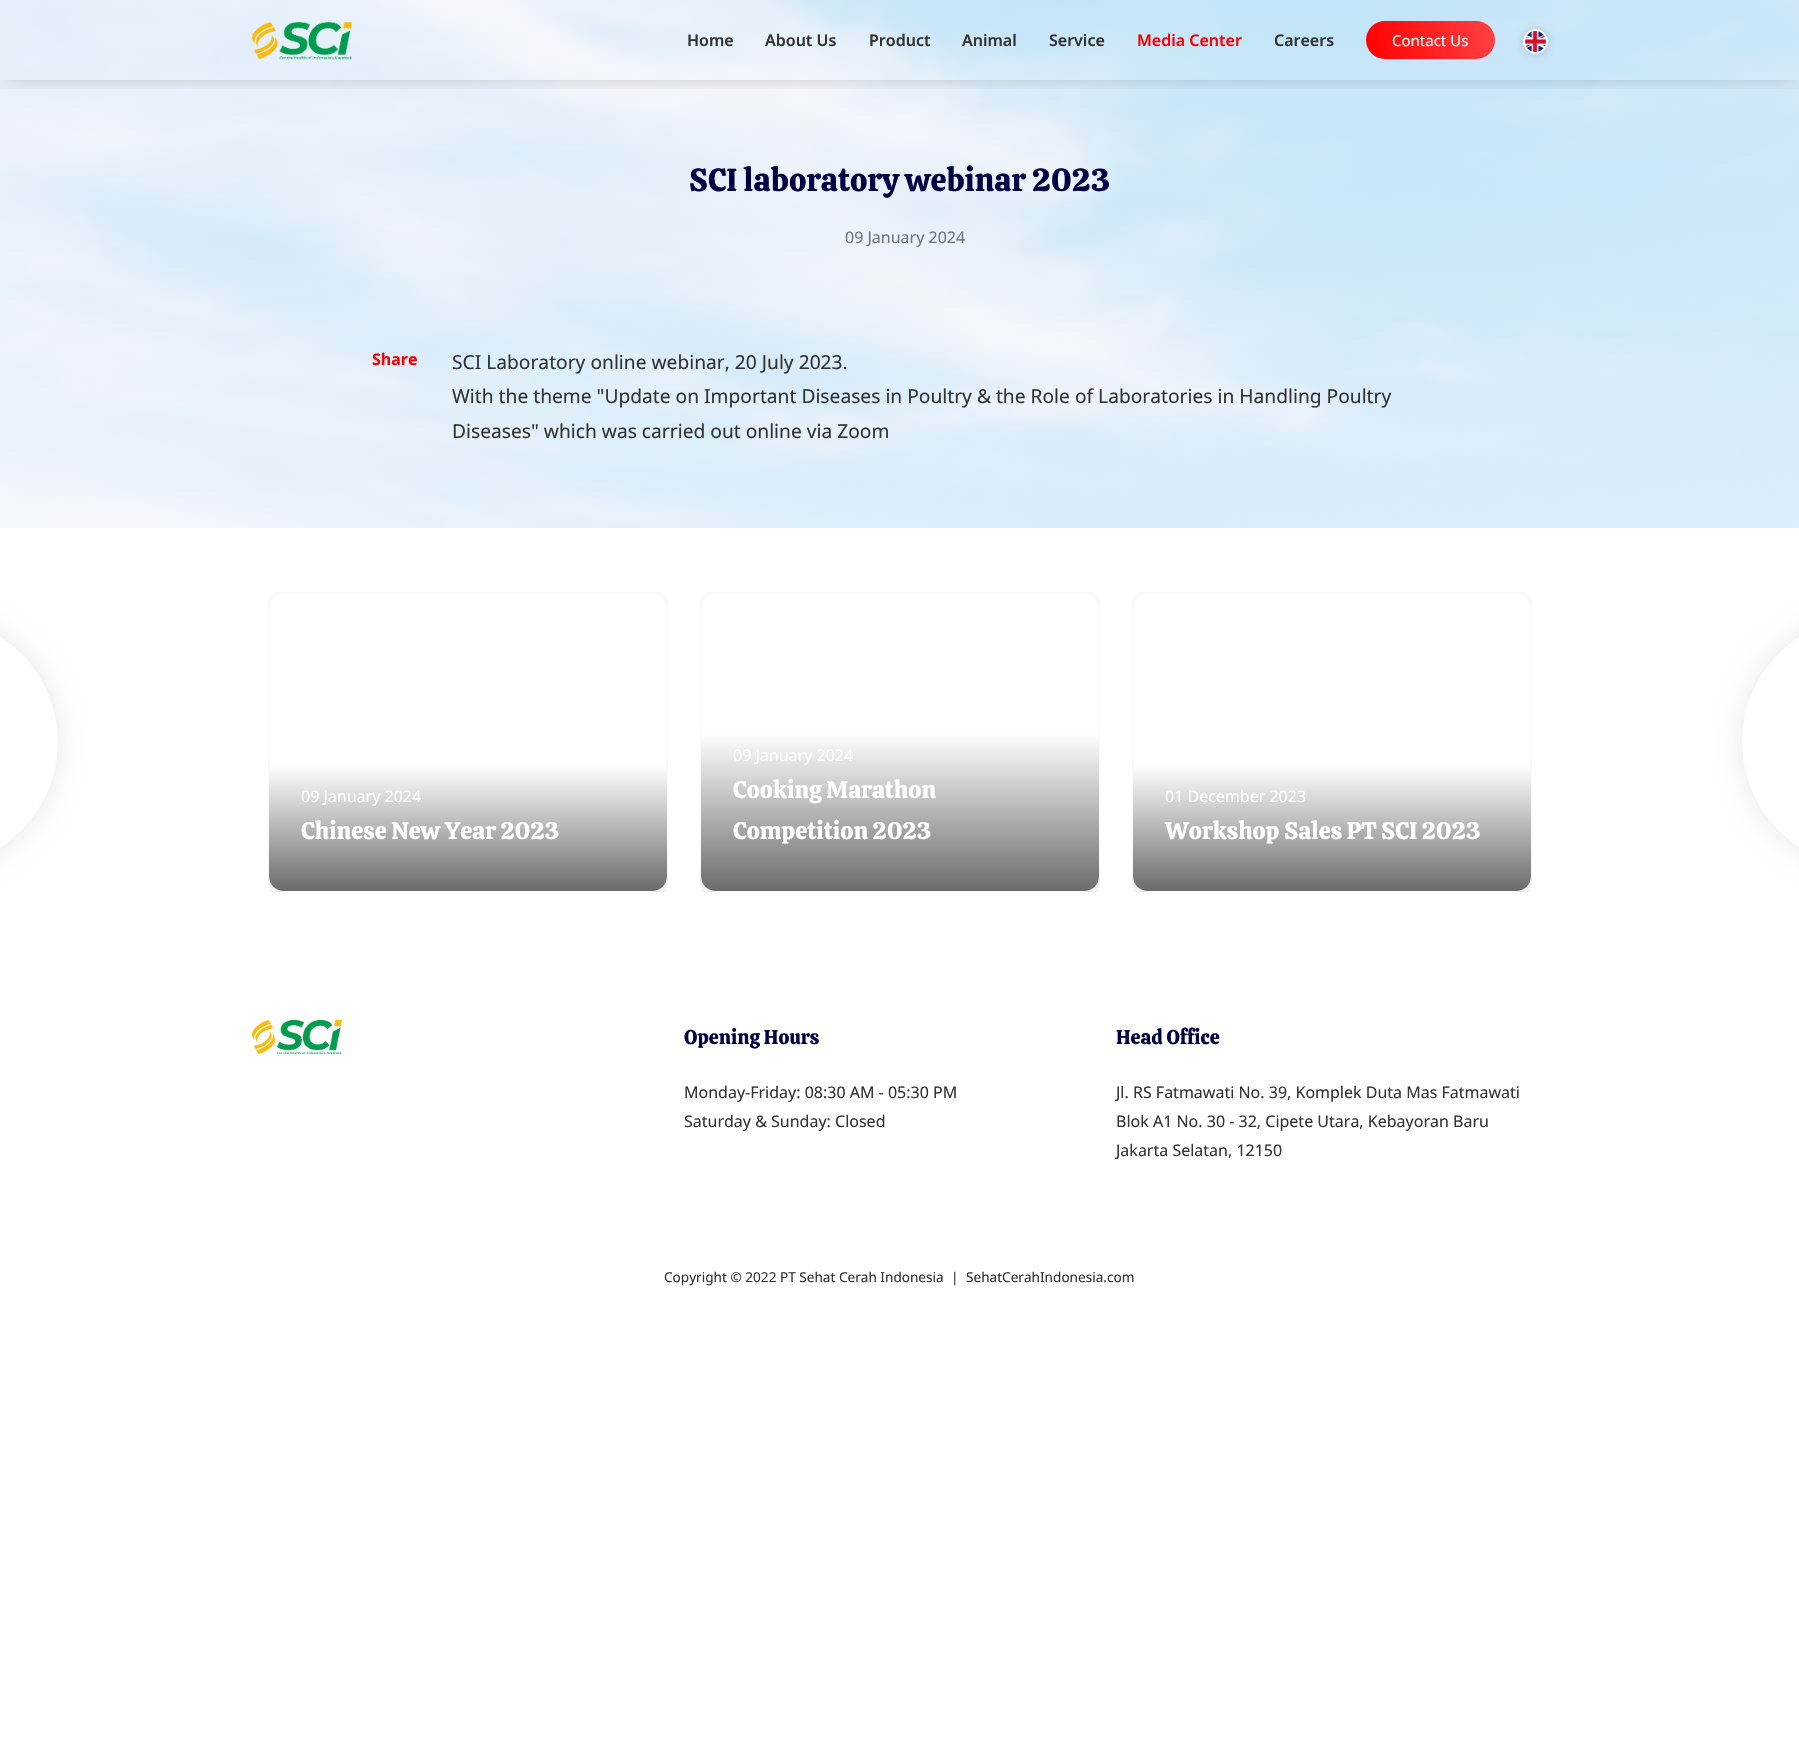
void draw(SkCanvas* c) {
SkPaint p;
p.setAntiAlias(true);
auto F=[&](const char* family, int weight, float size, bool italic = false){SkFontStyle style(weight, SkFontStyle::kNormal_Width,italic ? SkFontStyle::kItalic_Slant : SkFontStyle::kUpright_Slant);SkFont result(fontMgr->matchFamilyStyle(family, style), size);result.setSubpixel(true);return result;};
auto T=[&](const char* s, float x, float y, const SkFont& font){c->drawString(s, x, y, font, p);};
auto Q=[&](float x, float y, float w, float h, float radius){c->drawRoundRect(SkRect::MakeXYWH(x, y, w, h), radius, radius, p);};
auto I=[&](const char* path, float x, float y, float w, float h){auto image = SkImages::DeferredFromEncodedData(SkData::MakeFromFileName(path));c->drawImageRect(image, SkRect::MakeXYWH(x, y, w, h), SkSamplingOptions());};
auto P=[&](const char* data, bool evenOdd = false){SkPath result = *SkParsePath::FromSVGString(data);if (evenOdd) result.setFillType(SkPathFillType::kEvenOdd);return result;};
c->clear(0xffffffff);
I("3.png",0,0,1799,528);
c->save();
c->clipRect(SkRect::MakeXYWH(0,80,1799,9));
p.setColor(0x33000000);
p.setMaskFilter(SkMaskFilter::MakeBlur(kNormal_SkBlurStyle, 8));
c->drawRect(SkRect::MakeXYWH(5,9,1789,70),p);
p.setMaskFilter(nullptr);
c->restore();
I("1.png",251,21,101,39);
auto f1 = F("Noto Sans",600,16);
p.setColor(0xff333333);
T("Home",687,46,f1);
T("About Us",765,46,f1);
T("Product",869,46,f1);
T("Animal",962,46,f1);
T("Service",1049,46,f1);
p.setColor(0xffff0000);
T("Media Center",1137,46,f1);
p.setColor(0xff333333);
T("Careers",1274,46,f1);
{
const SkColor colors[] = {0xffff0000,0xffff8080,0xffff2b00};
const float stops[] = {0,.5,1};
const SkPoint ends[] = {{1371,85}, {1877,-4.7}};
p.setShader(SkGradientShader::MakeLinear(ends, colors, stops, 3, SkTileMode::kClamp));
p.setAlpha(255);
}
Q(1366,21,129,38,19);
auto f2 = F("Noto Sans",400,15);
p.setShader(nullptr);
p.setColor(0xffffffff);
T("Contact Us",1392,46,f2);
p.setColor(0xff6e6e6e);
p.setMaskFilter(SkMaskFilter::MakeBlur(kNormal_SkBlurStyle, 6));
c->drawRoundRect(SkRect::MakeXYWH(1527,33,17,17),8.5,8.5,p);
p.setMaskFilter(nullptr);
p.setStroke(true);
p.setStrokeWidth(2);
p.setColor(0xffffffff);
c->drawCircle(1535.5,41.5,11.5,p);
I("2.png",1525,31,21,21);
auto f3 = F("Calistoga",400,32);
p.setStroke(false);
p.setColor(0xff000144);
T("SCI laboratory webinar 2023",689,191,f3);
auto f4 = F("Noto Sans",400,16);
p.setColor(0xff6c757d);
T("09 January 2024",845,243,f4);
auto f5 = F("Noto Sans",700,16);
p.setColor(0xffff0000);
T("Share",372,365,f5);
auto f6 = F("Noto Sans",400,19.2);
p.setColor(0xff333333);
T("SCI Laboratory online webinar, 20 July 2023.",452,369,f6);
T("With the theme \"Update on Important Diseases in Poultry & the Role of Laboratories in Handling Poultry",452,403,f6);
T("Diseases\" which was carried out online via Zoom",452,438,f6);
p.setColor(0xff808080);
p.setMaskFilter(SkMaskFilter::MakeBlur(kNormal_SkBlurStyle, 25));
c->drawRoundRect(SkRect::MakeXYWH(-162,647,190,190),95,95,p);
p.setMaskFilter(nullptr);
p.setColor(0xffffffff);
c->drawPath(P("M0 617h-67c69 0 125 56 125 125c0 69-56 125-125 125h67z"),p);
c->save();
c->clipRect(SkRect::MakeXYWH(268,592,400,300));
c->clipPath(P("M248 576h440v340h-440zm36 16h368c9 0 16 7 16 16v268c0 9-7 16-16 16h-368c-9 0-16-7-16-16v-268c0-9 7-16 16-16z",true),true);
p.setColor(0x33000000);
p.setMaskFilter(SkMaskFilter::MakeBlur(kNormal_SkBlurStyle, 8));
c->drawRoundRect(SkRect::MakeXYWH(273,601,390,290),11,11,p);
p.setMaskFilter(nullptr);
c->restore();
p.setStroke(true);
p.setStrokeWidth(1);
p.setColor(0xfff9f9f9);
c->drawRoundRect(SkRect::MakeXYWH(268.5,592.5,399,299),15.5,15.5,p);
p.setStroke(false);
{
const SkColor colors[] = {0x00000000,0x94000000};
const float stops[] = {.2,1};
const SkPoint ends[] = {{468,734}, {468,891}};
p.setShader(SkGradientShader::MakeLinear(ends, colors, stops, 2, SkTileMode::kClamp));
p.setAlpha(255);
}
c->drawPath(P("M269 734h398v142c0 8.5-6.5 15-15 15h-368c-8.5 0-15-6.5-15-15z"),p);
p.setShader(nullptr);
p.setColor(0xffffffff);
T("09 January 2024",301,802,f4);
auto f7 = F("Calistoga",400,24);
T("Chinese New Year 2023",301,839,f7);
c->save();
c->clipRect(SkRect::MakeXYWH(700,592,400,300));
c->clipPath(P("M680 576h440v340h-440zm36 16h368c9 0 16 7 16 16v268c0 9-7 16-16 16h-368c-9 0-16-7-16-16v-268c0-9 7-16 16-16z",true),true);
p.setColor(0x33000000);
p.setMaskFilter(SkMaskFilter::MakeBlur(kNormal_SkBlurStyle, 8));
c->drawRoundRect(SkRect::MakeXYWH(705,601,390,290),11,11,p);
p.setMaskFilter(nullptr);
c->restore();
p.setStroke(true);
p.setColor(0xfff9f9f9);
c->drawRoundRect(SkRect::MakeXYWH(700.5,592.5,399,299),15.5,15.5,p);
p.setStroke(false);
{
const SkColor colors[] = {0x00000000,0x94000000};
const float stops[] = {.2,1};
const SkPoint ends[] = {{900,693}, {900,891}};
p.setShader(SkGradientShader::MakeLinear(ends, colors, stops, 2, SkTileMode::kClamp));
p.setAlpha(255);
}
c->drawPath(P("M701 693h398v183c0 8.5-6.5 15-15 15h-368c-8.5 0-15-6.5-15-15z"),p);
p.setShader(nullptr);
p.setColor(0xffffffff);
T("09 January 2024",733,761,f4);
T("Cooking Marathon",733,798,f7);
T("Competition 2023",733,839,f7);
c->save();
c->clipRect(SkRect::MakeXYWH(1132,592,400,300));
c->clipPath(P("M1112 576h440v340h-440zm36 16h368c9 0 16 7 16 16v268c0 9-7 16-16 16h-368c-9 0-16-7-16-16v-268c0-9 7-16 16-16z",true),true);
p.setColor(0x33000000);
p.setMaskFilter(SkMaskFilter::MakeBlur(kNormal_SkBlurStyle, 8));
c->drawRoundRect(SkRect::MakeXYWH(1137,601,390,290),11,11,p);
p.setMaskFilter(nullptr);
c->restore();
p.setStroke(true);
p.setColor(0xfff9f9f9);
c->drawRoundRect(SkRect::MakeXYWH(1132.5,592.5,399,299),15.5,15.5,p);
p.setStroke(false);
{
const SkColor colors[] = {0x00000000,0x94000000};
const float stops[] = {.2,1};
const SkPoint ends[] = {{1332,734}, {1332,891}};
p.setShader(SkGradientShader::MakeLinear(ends, colors, stops, 2, SkTileMode::kClamp));
p.setAlpha(255);
}
c->drawPath(P("M1133 734h398v142c0 8.5-6.5 15-15 15h-368c-8.5 0-15-6.5-15-15z"),p);
p.setShader(nullptr);
p.setColor(0xffffffff);
T("01 December 2023",1165,802,f4);
T("Workshop Sales PT SCI 2023",1165,839,f7);
p.setColor(0xff808080);
p.setMaskFilter(SkMaskFilter::MakeBlur(kNormal_SkBlurStyle, 25));
c->drawRoundRect(SkRect::MakeXYWH(1772,647,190,190),95,95,p);
p.setMaskFilter(nullptr);
p.setColor(0xffffffff);
c->drawPath(P("M1867 617h-68v250h68c-69 0-125-56-125-125c0-69 56-125 125-125z"),p);
I("4.png",252,1020,90,34);
auto f8 = F("Calistoga",400,20);
p.setColor(0xff000144);
T("Opening Hours",684,1044,f8);
p.setColor(0xff333333);
T("Monday-Friday: 08:30 AM - 05:30 PM",684,1098,f4);
T("Saturday & Sunday: Closed",684,1127,f4);
p.setColor(0xff000144);
T("Head Office",1116,1044,f8);
p.setColor(0xff333333);
T("Jl. RS Fatmawati No. 39, Komplek Duta Mas Fatmawati",1116,1098,f4);
T("Blok A1 No. 30 - 32, Cipete Utara, Kebayoran Baru",1116,1127,f4);
T("Jakarta Selatan, 12150",1116,1156,f4);
auto f9 = F("Noto Sans",400,13.6);
T("Copyright © 2022 PT Sehat Cerah Indonesia",664,1282,f9);
T("|",951,1282,f9);
T("SehatCerahIndonesia.com",966,1282,f9);
}
